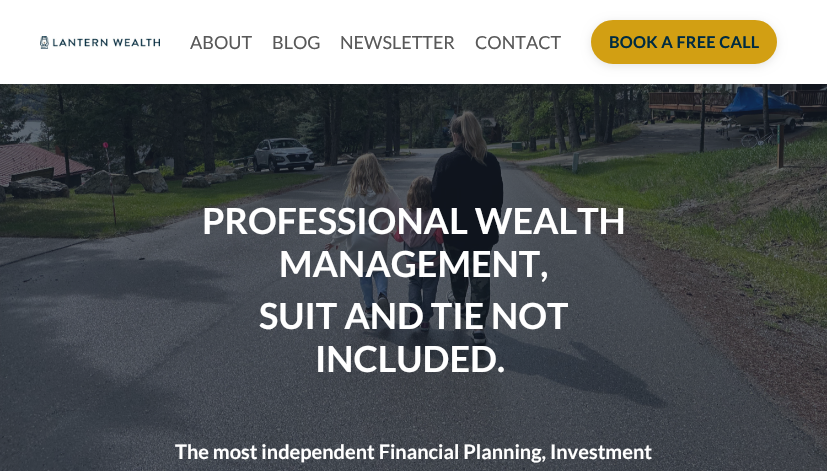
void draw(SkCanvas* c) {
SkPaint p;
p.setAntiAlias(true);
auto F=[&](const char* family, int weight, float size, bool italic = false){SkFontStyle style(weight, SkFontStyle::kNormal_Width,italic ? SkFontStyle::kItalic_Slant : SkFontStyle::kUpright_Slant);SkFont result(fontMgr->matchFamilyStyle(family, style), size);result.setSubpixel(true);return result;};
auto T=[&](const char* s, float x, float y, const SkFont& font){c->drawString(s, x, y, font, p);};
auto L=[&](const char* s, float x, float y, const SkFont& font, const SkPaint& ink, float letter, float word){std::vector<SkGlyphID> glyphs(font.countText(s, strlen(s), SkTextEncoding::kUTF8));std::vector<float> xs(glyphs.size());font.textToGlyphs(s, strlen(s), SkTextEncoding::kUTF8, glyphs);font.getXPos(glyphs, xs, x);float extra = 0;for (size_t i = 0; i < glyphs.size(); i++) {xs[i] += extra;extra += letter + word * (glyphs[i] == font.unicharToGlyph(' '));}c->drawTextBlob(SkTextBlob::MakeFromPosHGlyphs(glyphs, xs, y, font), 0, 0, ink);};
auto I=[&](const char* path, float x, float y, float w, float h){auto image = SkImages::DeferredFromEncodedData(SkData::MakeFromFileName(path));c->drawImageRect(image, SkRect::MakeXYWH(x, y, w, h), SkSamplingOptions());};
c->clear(0xffffffff);
I("1.png",40,36,120,13);
auto f1 = F("Lato",400,18);
p.setColor(0xff595959);
T("ABOUT",190,49,f1);
T("BLOG",272,49,f1);
T("NEWSLETTER",340,49,f1);
T("CONTACT",475,49,f1);
p.setColor(0x1a000000);
p.setMaskFilter(SkMaskFilter::MakeBlur(kNormal_SkBlurStyle, 5));
c->drawRoundRect(SkRect::MakeXYWH(591,22,186,44),22,22,p);
p.setMaskFilter(nullptr);
p.setColor(0xffd29f13);
c->drawRoundRect(SkRect::MakeXYWH(592,21,184,42),21,21,p);
p.setStroke(true);
p.setStrokeWidth(2);
c->drawRoundRect(SkRect::MakeXYWH(592,21,184,42),21,21,p);
auto f2 = F("Lato",700,16.25);
p.setStroke(false);
p.setColor(0xff002b41);
L("BOOK A FREE CALL",609,48,f2,p,.25,0);
I("2.png",0,84,827,387);
auto f3 = F("Lato",700,36);
p.setColor(0xffffffff);
T("PROFESSIONAL WEALTH",202,234,f3);
T("MANAGEMENT,",279,277,f3);
T("SUIT AND TIE NOT",259,329,f3);
T("INCLUDED.",315,372,f3);
auto f4 = F("Lato",700,20);
T("The most independent Financial Planning, Investment",175,459,f4);
}
